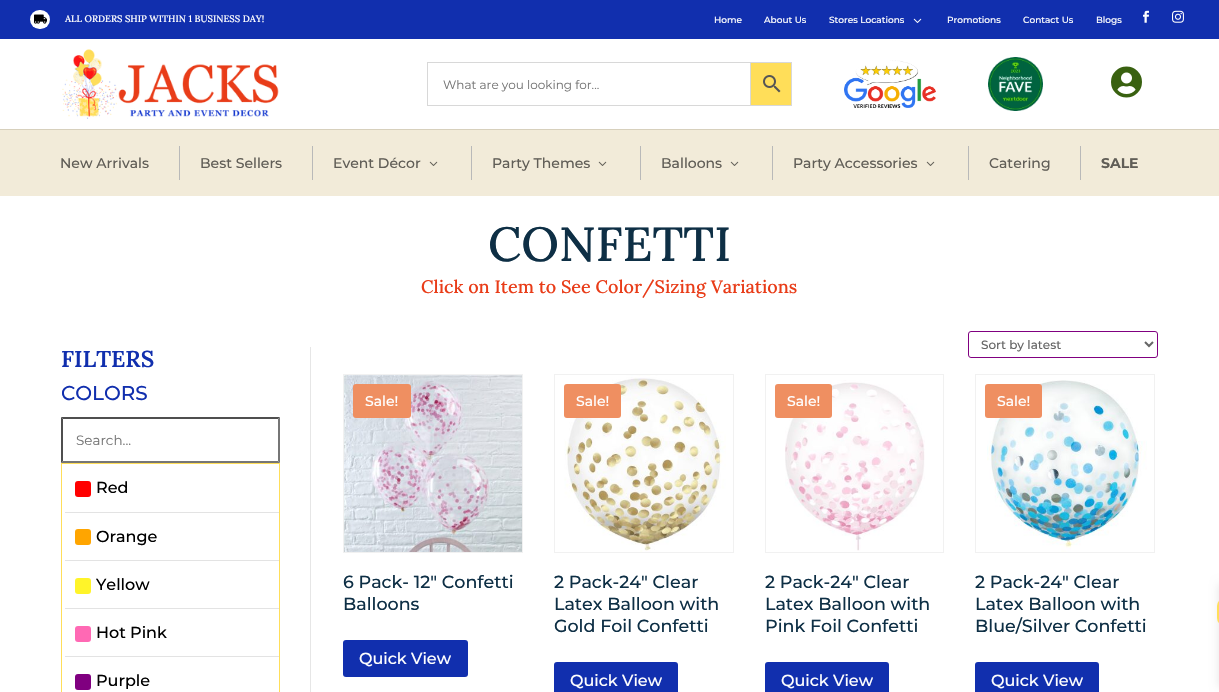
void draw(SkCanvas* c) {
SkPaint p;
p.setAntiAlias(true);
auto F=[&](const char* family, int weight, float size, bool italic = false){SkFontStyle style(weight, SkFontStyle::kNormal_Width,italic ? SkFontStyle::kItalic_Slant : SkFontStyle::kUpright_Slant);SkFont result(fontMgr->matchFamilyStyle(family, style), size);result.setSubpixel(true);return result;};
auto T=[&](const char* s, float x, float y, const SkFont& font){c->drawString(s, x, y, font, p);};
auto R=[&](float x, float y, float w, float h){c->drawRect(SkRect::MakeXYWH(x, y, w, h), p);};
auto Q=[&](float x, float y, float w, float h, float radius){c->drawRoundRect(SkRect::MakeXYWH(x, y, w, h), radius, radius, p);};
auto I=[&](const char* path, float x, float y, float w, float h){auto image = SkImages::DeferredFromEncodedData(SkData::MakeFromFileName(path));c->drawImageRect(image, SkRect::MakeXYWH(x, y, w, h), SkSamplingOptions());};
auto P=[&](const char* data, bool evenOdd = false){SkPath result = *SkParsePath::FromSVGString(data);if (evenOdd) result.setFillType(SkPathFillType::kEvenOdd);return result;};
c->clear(0xffffffff);
p.setColor(0xff112fae);
R(0,0,1219,39);
p.setColor(0xffffffff);
Q(30,10,20,19,9.5);
I("1.png",34,14,13,10);
auto f1 = F("Lora",500,9.4);
T("ALL ORDERS SHIP WITHIN 1 BUSINESS DAY!",65,22,f1);
auto f2 = F("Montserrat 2",100,9);
T("Home",714,23,f2);
T("About Us",764,23,f2);
T("Stores Locations",829,23,f2);
I("2.png",913,18,9,5);
T("Promotions",947,23,f2);
T("Contact Us",1023,23,f2);
T("Blogs",1096,23,f2);
I("3.png",1143,10,6,13);
I("4.png",1172,10,12,13);
I("5.png",62,49,217,70);
p.setColor(0xffffde59);
c->drawRect(SkRect::MakeXYWH(750.5,62.5,41,43),p);
p.setStroke(true);
p.setStrokeWidth(1);
p.setColor(0xffd8d8d8);
c->drawRect(SkRect::MakeXYWH(750.5,62.5,41,43),p);
c->drawRect(SkRect::MakeXYWH(427.5,62.5,323,43),p);
auto f3 = F("Montserrat",100,12);
p.setStroke(false);
p.setColor(0xff757575);
T("What are you looking for...",443,89,f3);
I("6.png",763,75,18,18);
I("7.png",844,60,92,48);
I("8.png",988,57,55,54);
I("9.png",1111,66,31,32);
p.setColor(0xfff2ebd9);
R(0,130,1219,66);
p.setColor(0xffd7d0bc);
R(0,129,1219,1);
p.setColor(0xffb9b9b9);
R(179,146,1,34);
auto f4 = F("Montserrat 2",100,14);
p.setColor(0xff615e57);
T("New Arrivals",60,168,f4);
p.setColor(0xffb9b9b9);
R(312,146,1,34);
p.setColor(0xff615e57);
T("Best Sellers",200,168,f4);
p.setColor(0xffb9b9b9);
R(471,146,1,34);
p.setColor(0xff615e57);
T("Event Décor",333,168,f4);
I("10.png",429,161,9,5);
p.setColor(0xffb9b9b9);
R(640,146,1,34);
p.setColor(0xff615e57);
T("Party Themes",492,168,f4);
I("10.png",598,161,9,5);
p.setColor(0xffb9b9b9);
R(772,146,1,34);
p.setColor(0xff615e57);
T("Balloons",661,168,f4);
I("10.png",730,161,9,5);
p.setColor(0xffb9b9b9);
R(968,146,1,34);
p.setColor(0xff615e57);
T("Party Accessories",793,168,f4);
I("10.png",926,161,9,5);
p.setColor(0xffb9b9b9);
R(1080,146,1,34);
p.setColor(0xff615e57);
T("Catering",989,168,f4);
auto f5 = F("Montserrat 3",100,14);
T("SALE",1101,168,f5);
auto f6 = F("Lora",500,48);
p.setColor(0xff0e2f45);
T("CONFETTI",488,261,f6);
auto f7 = F("Lora",500,18);
p.setColor(0xffe93c18);
T("Click on Item to See Color/Sizing Variations",421,293,f7);
p.setColor(0xffe6e6e6);
R(310,347,1,345);
auto f8 = F("Lora",600,23);
p.setColor(0xff112fae);
T("FILTERS",61,367,f8);
auto f9 = F("Montserrat 2",100,20);
T("COLORS",61,400,f9);
p.setColor(0xff4f4f4f);
c->drawPath(P("M61 417h219l-2 2h-215z"),p);
p.setColor(0xff767676);
c->drawPath(P("M280 417v46l-2-2v-42z"),p);
c->drawPath(P("M280 463h-219l2-2h215z"),p);
p.setColor(0xff4f4f4f);
c->drawPath(P("M61 463v-46l2 2v42z"),p);
auto f10 = F("Montserrat",100,13.5);
p.setColor(0xff757575);
T("Search...",76,445,f10);
p.setStroke(true);
p.setColor(0xffffde59);
c->drawRect(SkRect::MakeXYWH(61.5,463.5,218,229),p);
p.setStroke(false);
p.setColor(0xffe3e3e3);
R(65,512,214,1);
p.setColor(0xffff0000);
Q(75,481,16,16,3);
auto f11 = F("Montserrat 2",100,16);
p.setColor(0xff000000);
T("Red",96,493,f11);
p.setColor(0xffe3e3e3);
R(65,560,214,1);
p.setColor(0xffffa500);
Q(75,529,16,16,3);
p.setColor(0xff000000);
T("Orange",96,542,f11);
p.setColor(0xffe3e3e3);
R(65,608,214,1);
p.setColor(0xfffff429);
Q(75,578,16,16,3);
p.setColor(0xff000000);
T("Yellow",96,590,f11);
p.setColor(0xffe3e3e3);
R(65,656,214,1);
p.setColor(0xffff69b4);
Q(75,626,16,16,3);
p.setColor(0xff000000);
T("Hot Pink",96,638,f11);
p.setColor(0xff800080);
Q(75,674,16,16,3);
p.setColor(0xff000000);
T("Purple",96,686,f11);
p.setStroke(true);
p.setColor(0xff800080);
c->drawRoundRect(SkRect::MakeXYWH(968.5,331.5,189,26),2.5,2.5,p);
p.setStrokeWidth(2);
p.setColor(0xff666666);
c->drawPath(P("M1145 342l4 4l4-4"),p);
auto f12 = F("Montserrat 2",100,12);
p.setStroke(false);
T("Sort by latest",981,349,f12);
p.setStroke(true);
p.setStrokeWidth(1);
p.setColor(0xfff1f1f1);
c->drawRect(SkRect::MakeXYWH(343.5,374.5,179,178),p);
I("11.png",344,375,178,177);
p.setStroke(false);
p.setColor(0xffef8f61);
Q(353,384,58,34,3);
p.setColor(0xffffffff);
T("Sale!",365,406,f4);
auto f13 = F("Montserrat 2",100,17.5);
p.setColor(0xff0e2f45);
T("6 Pack- 12″ Confetti",343,588,f13);
T("Balloons",343,610,f13);
p.setColor(0xff112fae);
Q(343,640,125,37,3);
p.setColor(0xffffffff);
T("Quick View",359,664,f11);
p.setStroke(true);
p.setColor(0xfff1f1f1);
c->drawRect(SkRect::MakeXYWH(554.5,374.5,179,178),p);
I("12.png",564,375,162,177);
p.setStroke(false);
p.setColor(0xffef8f61);
Q(564,384,57,34,3);
p.setColor(0xffffffff);
T("Sale!",576,406,f4);
p.setColor(0xff0e2f45);
T("2 Pack-24″ Clear",554,588,f13);
T("Latex Balloon with",554,610,f13);
T("Gold Foil Confetti",554,632,f13);
p.setColor(0xff112fae);
Q(554,662,124,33,3);
p.setColor(0xffffffff);
T("Quick View",570,686,f11);
p.setStroke(true);
p.setColor(0xfff1f1f1);
c->drawRect(SkRect::MakeXYWH(765.5,374.5,178,178),p);
I("13.png",785,380,140,171);
p.setStroke(false);
p.setColor(0xffef8f61);
Q(775,384,57,34,3);
p.setColor(0xffffffff);
T("Sale!",787,406,f4);
p.setColor(0xff0e2f45);
T("2 Pack-24″ Clear",765,588,f13);
T("Latex Balloon with",765,610,f13);
T("Pink Foil Confetti",765,632,f13);
p.setColor(0xff112fae);
Q(765,662,124,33,3);
p.setColor(0xffffffff);
T("Quick View",781,686,f11);
p.setStroke(true);
p.setColor(0xfff1f1f1);
c->drawRect(SkRect::MakeXYWH(975.5,374.5,179,178),p);
I("14.png",987,380,160,172);
p.setStroke(false);
p.setColor(0xffef8f61);
Q(985,384,57,34,3);
p.setColor(0xffffffff);
T("Sale!",997,406,f4);
p.setColor(0xff0e2f45);
T("2 Pack-24″ Clear",975,588,f13);
T("Latex Balloon with",975,610,f13);
T("Blue/Silver Confetti",975,632,f13);
p.setColor(0xff112fae);
Q(975,662,124,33,3);
p.setColor(0xffffffff);
T("Quick View",991,686,f11);
p.setColor(0x1a000000);
p.setMaskFilter(SkMaskFilter::MakeBlur(kNormal_SkBlurStyle, 5));
c->drawRect(SkRect::MakeXYWH(1219,584,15,103),p);
p.setMaskFilter(nullptr);
p.setColor(0xffffde59);
Q(1217,598,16,28,14);
}
